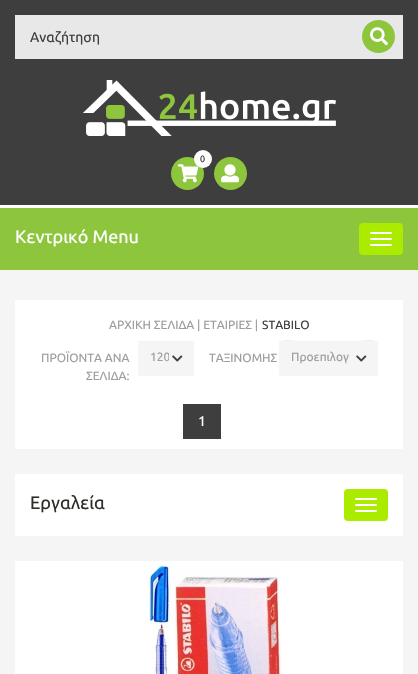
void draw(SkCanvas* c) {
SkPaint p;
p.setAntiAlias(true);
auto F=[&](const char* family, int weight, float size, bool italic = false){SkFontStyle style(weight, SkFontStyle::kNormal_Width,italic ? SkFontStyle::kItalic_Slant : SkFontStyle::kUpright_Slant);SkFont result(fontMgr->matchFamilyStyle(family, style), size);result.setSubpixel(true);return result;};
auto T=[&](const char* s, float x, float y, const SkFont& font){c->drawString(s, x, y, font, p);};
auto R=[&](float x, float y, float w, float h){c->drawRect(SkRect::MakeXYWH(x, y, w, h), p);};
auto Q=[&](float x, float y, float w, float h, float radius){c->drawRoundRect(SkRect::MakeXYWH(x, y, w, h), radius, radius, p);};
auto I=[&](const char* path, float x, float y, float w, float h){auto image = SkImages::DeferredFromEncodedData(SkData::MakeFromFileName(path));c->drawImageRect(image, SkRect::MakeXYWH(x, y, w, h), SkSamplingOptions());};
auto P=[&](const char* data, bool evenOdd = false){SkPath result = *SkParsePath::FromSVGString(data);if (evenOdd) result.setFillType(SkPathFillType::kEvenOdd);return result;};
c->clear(0xfff5f5f5);
p.setColor(0xff3e3e3e);
R(0,0,418,205);
p.setColor(0xffffffff);
R(0,205,418,3);
p.setColor(0xffe8e8e8);
R(15,15,388,44);
auto f1 = F("Ubuntu",400,14);
p.setColor(0xff3e3e3e);
T("Αναζήτηση",30,42,f1);
p.setColor(0xff8dc53d);
c->drawCircle(378.5,36.5,16.5,p);
I("1.png",370,27,18,19);
I("2.png",83,80,253,56);
c->drawCircle(187.5,173.5,16.5,p);
I("3.png",178,164,21,19);
p.setColor(0xffffffff);
c->drawCircle(203,159,9,p);
auto f2 = F("Ubuntu",400,9);
p.setColor(0xff2d2e28);
T("0",200,162,f2);
p.setColor(0xff8dc53d);
c->drawCircle(230.5,173.5,16.5,p);
I("4.png",221,164,18,19);
R(0,208,418,62);
auto f3 = F("Ubuntu",400,18);
p.setColor(0xffffffff);
T("Κεντρικό Menu",15,243,f3);
p.setColor(0xffabeb00);
Q(359,223,44,32,4);
p.setColor(0xffffffff);
Q(370,232,22,2,1);
Q(370,238,22,2,1);
Q(370,244,22,2,1);
R(15,300,388,149);
auto f4 = F("Ubuntu",400,12);
p.setColor(0xff9d9d9d);
T("ΑΡΧΙΚΗ ΣΕΛΙΔΑ | ΕΤΑΙΡΙΕΣ |",109,329,f4);
p.setColor(0xff3e3e3e);
T("STABILO",262,329,f4);
p.setColor(0xff9d9d9d);
T("ΠΡΟΪΟΝΤΑ ΑΝΑ",41,362,f4);
T("ΣΕΛΙΔΑ:",86,380,f4);
p.setColor(0xfff5f5f5);
R(138,341,56,35);
c->save();
c->clipRect(SkRect::MakeXYWH(150,348,19,18));
p.setColor(0xff9d9d9d);
T("120",150,361,f4);
c->restore();
I("5.png",172,355,11,7);
T("ΤΑΞΙΝΟΜΗΣ",209,362,f4);
p.setColor(0xffececec);
c->drawPath(P("M283 342h91c2 0 4 2 4 4c0-9-15-5-19-5h-61c-4 0-19-4-19 5c0-2 2-4 4-4z"),p);
p.setColor(0xfff5f5f5);
R(279,341,99,35);
p.setColor(0xff9d9d9d);
T("Προεπιλογ",291,361,f4);
I("5.png",356,355,11,7);
p.setColor(0xff3e3e3e);
R(183,404,38,35);
p.setColor(0xffffffff);
T("1",198,426,f1);
R(15,474,388,62);
p.setColor(0xff2d2e28);
T("Εργαλεία",30,509,f3);
p.setColor(0xffabeb00);
Q(344,489,44,32,4);
p.setColor(0xffffffff);
Q(355,498,22,2,1);
Q(355,504,22,2,1);
Q(355,510,22,2,1);
R(15,561,388,113);
I("6.png",149,563,133,111);
}
